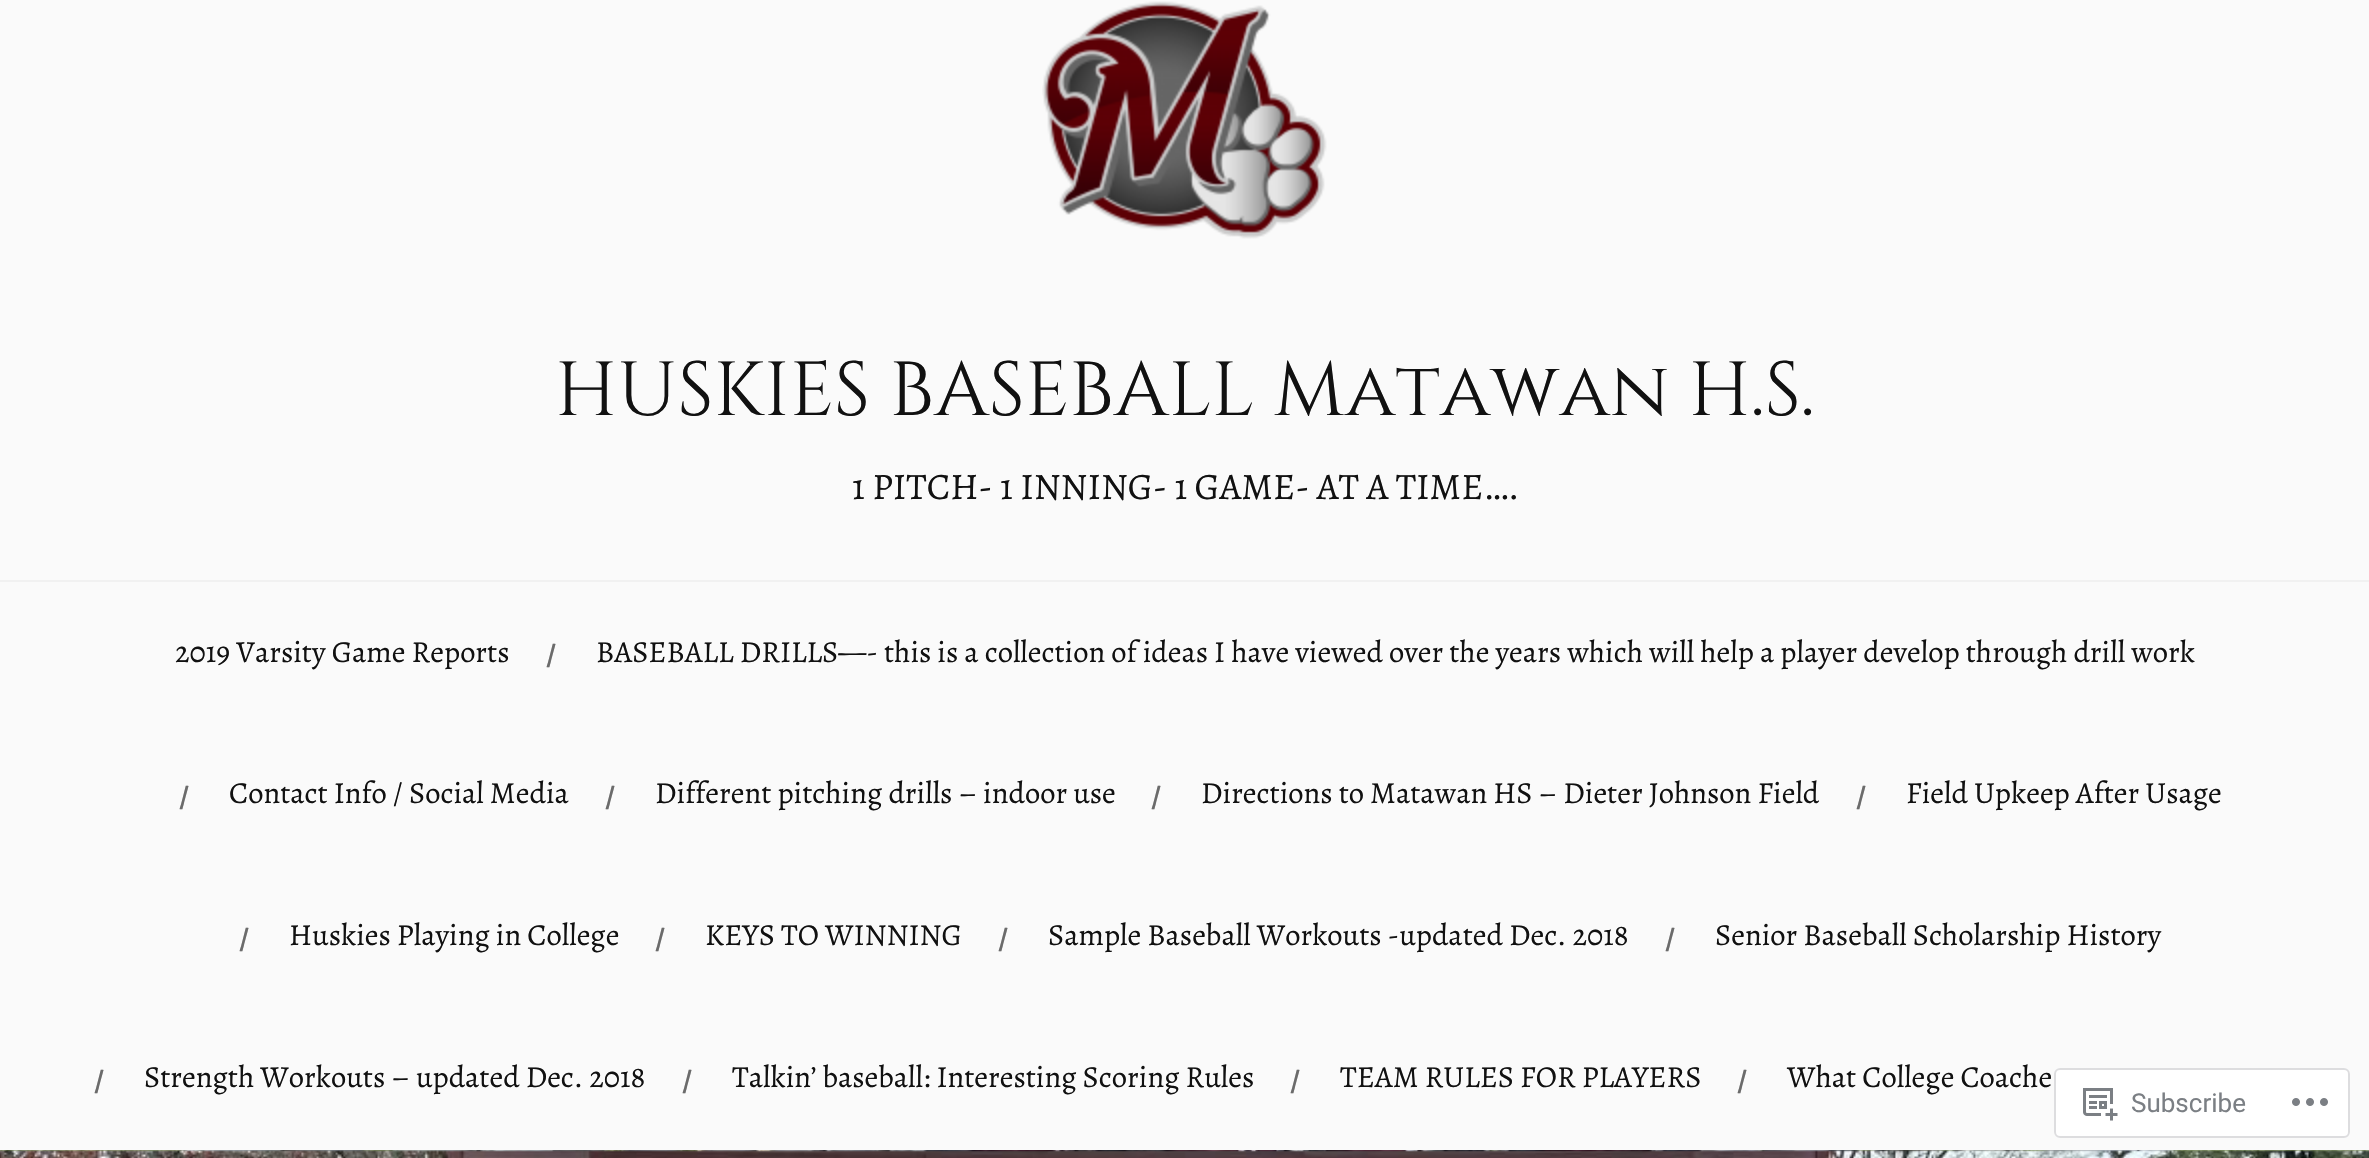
void draw(SkCanvas* c) {
SkPaint p;
p.setAntiAlias(true);
auto F=[&](const char* family, int weight, float size, bool italic = false){SkFontStyle style(weight, SkFontStyle::kNormal_Width,italic ? SkFontStyle::kItalic_Slant : SkFontStyle::kUpright_Slant);SkFont result(fontMgr->matchFamilyStyle(family, style), size);result.setSubpixel(true);return result;};
auto T=[&](const char* s, float x, float y, const SkFont& font){c->drawString(s, x, y, font, p);};
auto R=[&](float x, float y, float w, float h){c->drawRect(SkRect::MakeXYWH(x, y, w, h), p);};
auto Q=[&](float x, float y, float w, float h, float radius){c->drawRoundRect(SkRect::MakeXYWH(x, y, w, h), radius, radius, p);};
auto I=[&](const char* path, float x, float y, float w, float h){auto image = SkImages::DeferredFromEncodedData(SkData::MakeFromFileName(path));c->drawImageRect(image, SkRect::MakeXYWH(x, y, w, h), SkSamplingOptions());};
c->clear(0xfffafafa);
I("1.png",1042,1,285,238);
auto f1 = F("Cinzel",400,76.5);
p.setColor(0xff111111);
T("HUSKIES BASEBALL Matawan H.S.",555,415,f1);
auto f2 = F("Alegreya",400,37.4);
T("1 PITCH- 1 INNING- 1 GAME- AT A TIME….",852,499,f2);
p.setColor(0xfff1f1f1);
R(0,580,2369,2);
auto f3 = F("Alegreya",400,30.6);
p.setColor(0xff111111);
T("2019 Varsity Game Reports",175,662,f3);
auto f4 = F("Alegreya",700,30);
p.setColor(0xff6b6b6b);
T("/",546,664,f4);
p.setColor(0xff111111);
T("BASEBALL DRILLS—- this is a collection of ideas I have viewed over the years which will help a player develop through drill work",596,662,f3);
p.setColor(0xff6b6b6b);
T("/",179,806,f4);
p.setColor(0xff111111);
T("Contact Info / Social Media",229,803,f3);
p.setColor(0xff6b6b6b);
T("/",605,806,f4);
p.setColor(0xff111111);
T("Different pitching drills – indoor use",655,803,f3);
p.setColor(0xff6b6b6b);
T("/",1151,806,f4);
p.setColor(0xff111111);
T("Directions to Matawan HS – Dieter Johnson Field",1201,803,f3);
p.setColor(0xff6b6b6b);
T("/",1856,806,f4);
p.setColor(0xff111111);
T("Field Upkeep After Usage",1906,803,f3);
p.setColor(0xff6b6b6b);
T("/",239,948,f4);
p.setColor(0xff111111);
T("Huskies Playing in College",289,945,f3);
p.setColor(0xff6b6b6b);
T("/",655,948,f4);
p.setColor(0xff111111);
T("KEYS TO WINNING",705,945,f3);
p.setColor(0xff6b6b6b);
T("/",998,948,f4);
p.setColor(0xff111111);
T("Sample Baseball Workouts -updated Dec. 2018",1048,945,f3);
p.setColor(0xff6b6b6b);
T("/",1665,948,f4);
p.setColor(0xff111111);
T("Senior Baseball Scholarship History",1715,945,f3);
p.setColor(0xff6b6b6b);
T("/",94,1090,f4);
p.setColor(0xff111111);
T("Strength Workouts – updated Dec. 2018",144,1087,f3);
p.setColor(0xff6b6b6b);
T("/",682,1090,f4);
p.setColor(0xff111111);
T("Talkin’ baseball: Interesting Scoring Rules",732,1087,f3);
p.setColor(0xff6b6b6b);
T("/",1290,1090,f4);
p.setColor(0xff111111);
T("TEAM RULES FOR PLAYERS",1340,1087,f3);
p.setColor(0xff6b6b6b);
T("/",1737,1090,f4);
p.setColor(0xff111111);
T("What College Coache",1787,1087,f3);
I("2.png",0,1150,2369,8);
p.setColor(0xfaffffff);
Q(2054,1068,296,70,6);
p.setStroke(true);
p.setStrokeWidth(2);
p.setColor(0xfadcdcde);
c->drawRoundRect(SkRect::MakeXYWH(2055,1069,294,68),5,5,p);
I("3.png",2083,1088,35,33);
auto f5 = F("Roboto",400,26);
p.setStroke(false);
p.setColor(0xff7b7f84);
T("Subscribe",2131,1112,f5);
I("4.png",2292,1098,36,8);
}
